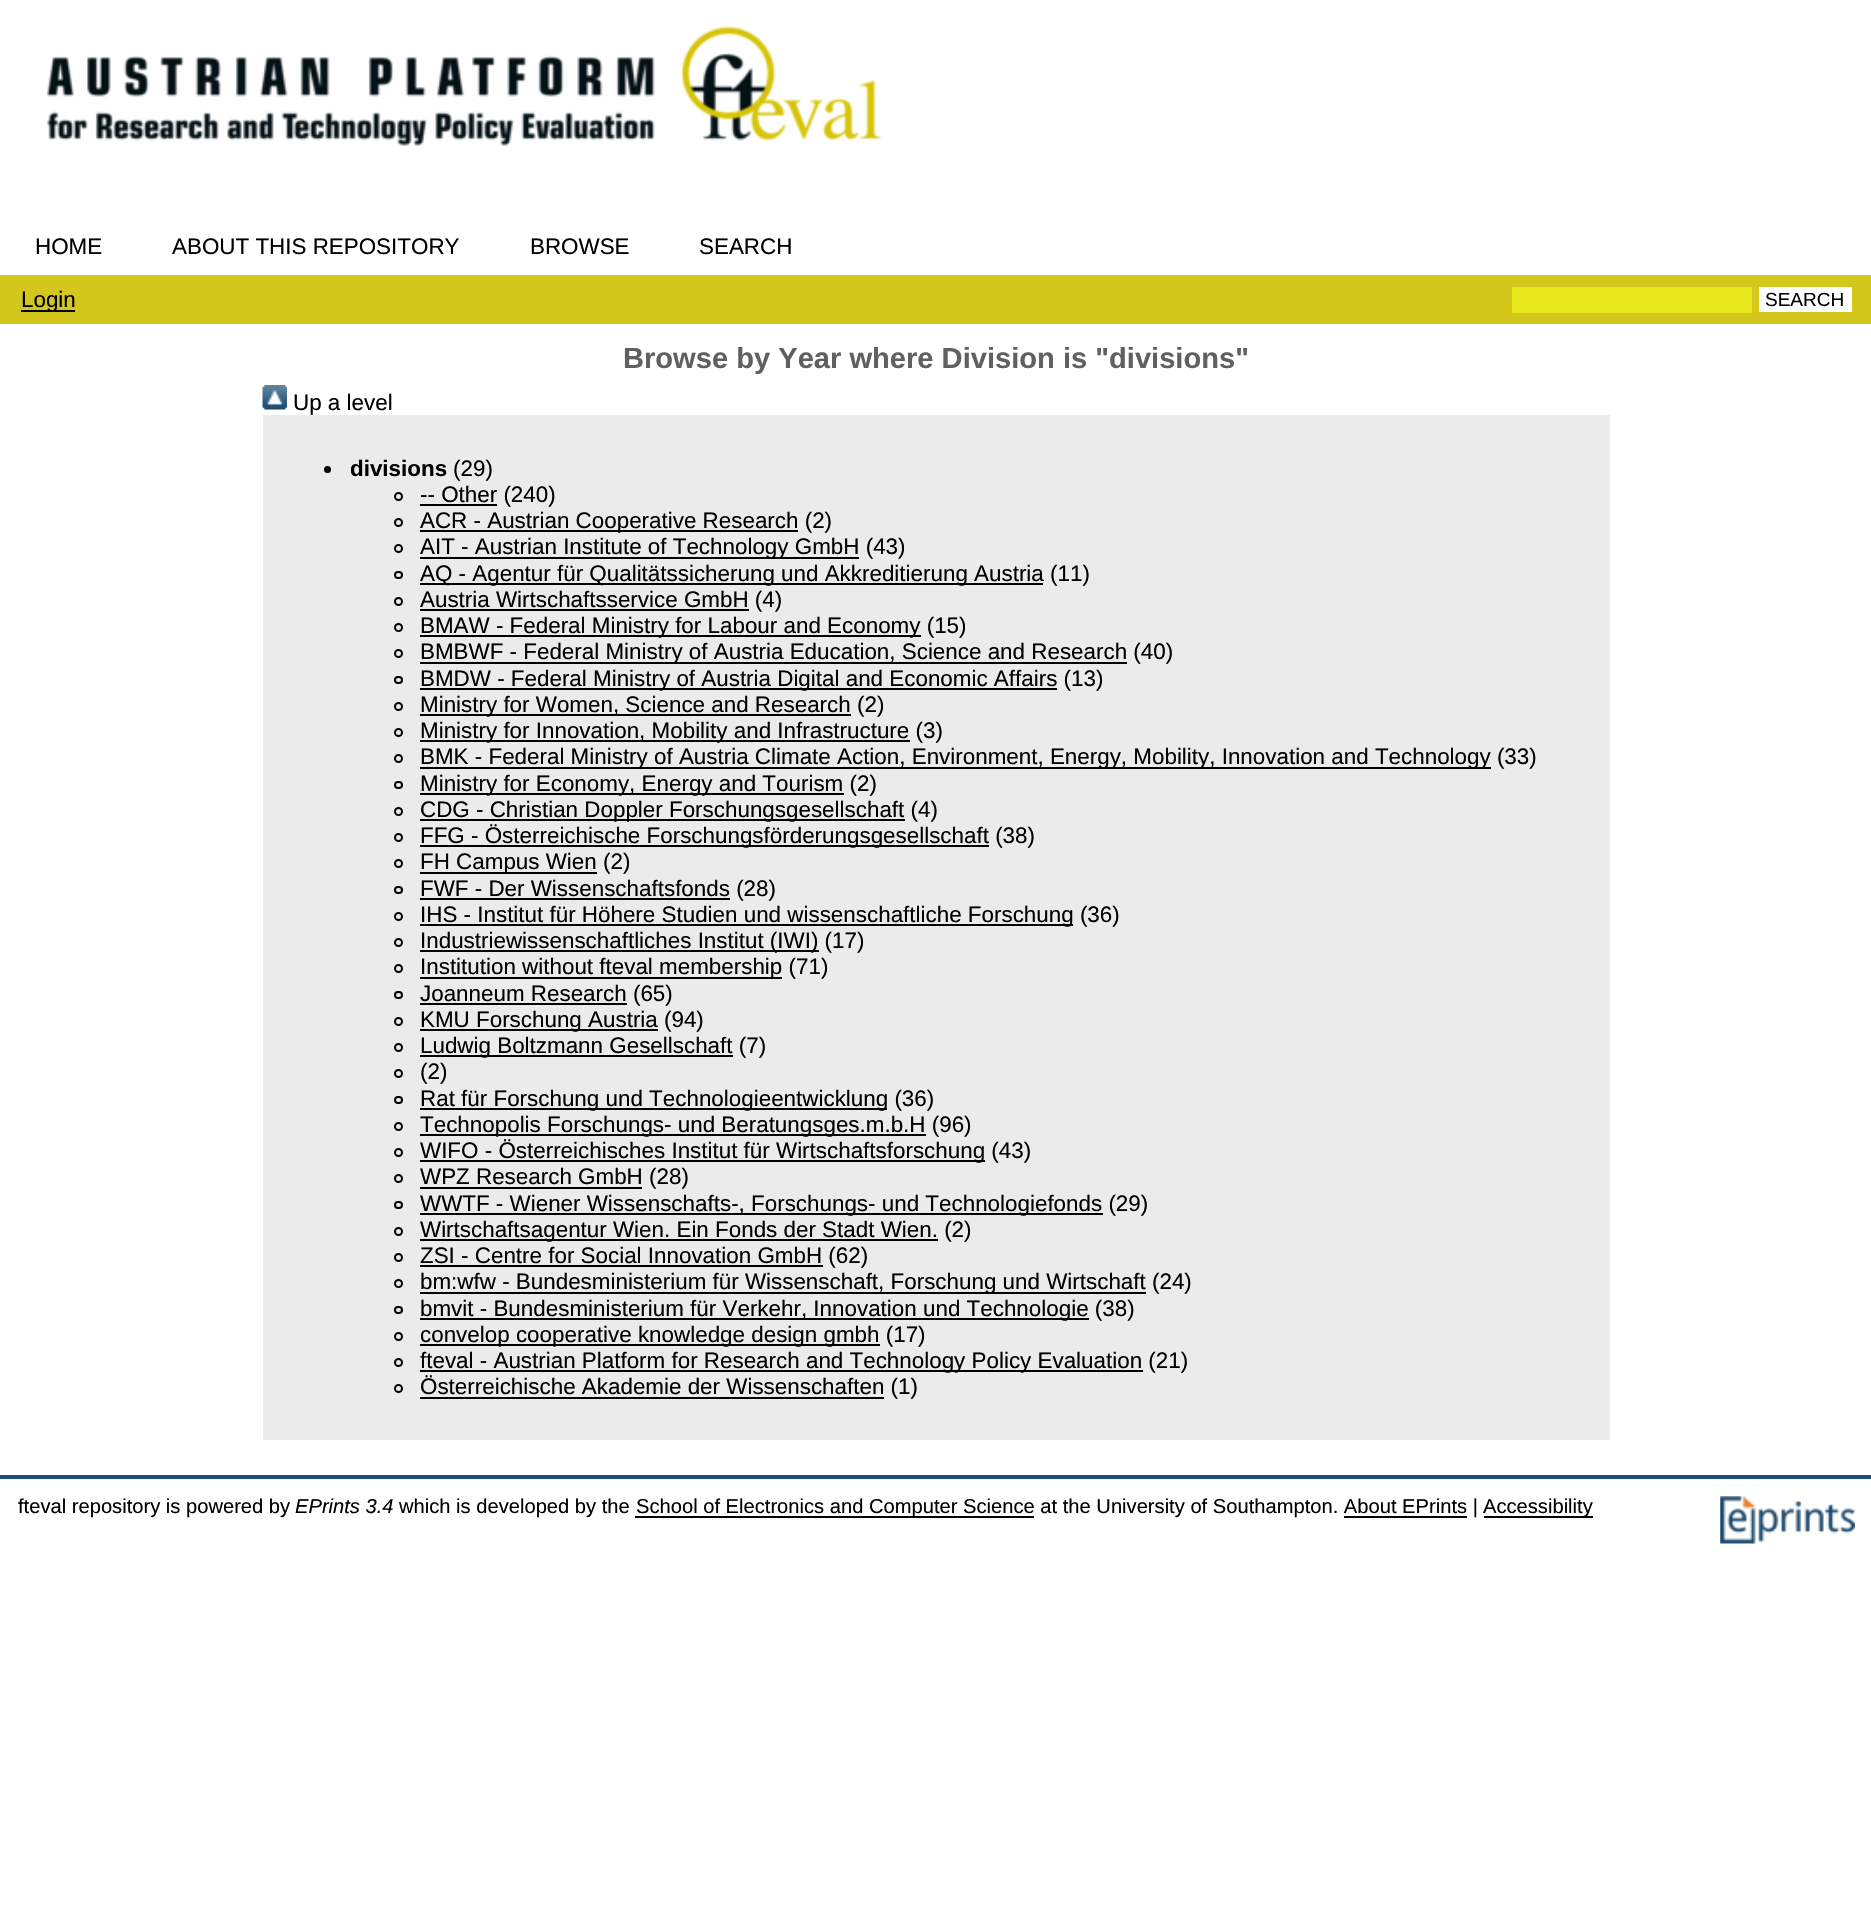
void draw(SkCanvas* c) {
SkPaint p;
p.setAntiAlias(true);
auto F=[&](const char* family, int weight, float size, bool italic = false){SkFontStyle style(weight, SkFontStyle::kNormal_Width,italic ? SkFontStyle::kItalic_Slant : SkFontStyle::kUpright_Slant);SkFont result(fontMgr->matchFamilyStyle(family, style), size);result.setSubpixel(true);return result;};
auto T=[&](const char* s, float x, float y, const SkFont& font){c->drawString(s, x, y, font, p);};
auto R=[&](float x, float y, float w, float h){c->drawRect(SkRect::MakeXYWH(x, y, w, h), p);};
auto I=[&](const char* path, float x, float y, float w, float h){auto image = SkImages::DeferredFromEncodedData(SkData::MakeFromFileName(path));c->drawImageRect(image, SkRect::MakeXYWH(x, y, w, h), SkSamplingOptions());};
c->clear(0xffffffff);
I("1.png",46,26,837,120);
auto f1 = F("Liberation Sans",400,22.4);
p.setColor(0xff000000);
T("HOME",35,254,f1);
T("ABOUT THIS REPOSITORY",172,254,f1);
T("BROWSE",530,254,f1);
T("SEARCH",699,254,f1);
p.setColor(0xffd3c71c);
R(0,275,1871,49);
p.setColor(0xff000000);
R(21,310,54,2);
T("Login",21,307,f1);
p.setColor(0xffe8e71c);
R(1512,287,240,26);
p.setColor(0xffffffff);
R(1759,287,93,25);
auto f2 = F("Liberation Sans",400,19);
p.setColor(0xff000000);
T("SEARCH",1765,306,f2);
auto f3 = F("Liberation Sans",700,29.1);
p.setColor(0xff606060);
T("Browse by Year where Division is \"divisions\"",623,368,f3);
I("2.png",262,385,25,25);
p.setColor(0xff000000);
T("Up a level",293,410,f1);
p.setColor(0xffebebec);
R(263,415,1347,1025);
p.setColor(0xff000000);
c->drawCircle(327.5,469.5,3.5,p);
auto f4 = F("Liberation Sans",700,22.4);
T("divisions",350,476,f4);
T("(29)",453,476,f1);
p.setStroke(true);
p.setStrokeWidth(2);
c->drawCircle(398.5,496.5,3.5,p);
p.setStroke(false);
R(420,504,77,2);
T("-- Other (240)",420,502,f1);
p.setStroke(true);
c->drawCircle(398.5,522.5,3.5,p);
p.setStroke(false);
R(420,530,378,2);
T("ACR - Austrian Cooperative Research (2)",420,528,f1);
p.setStroke(true);
c->drawCircle(398.5,548.5,3.5,p);
p.setStroke(false);
R(420,557,439,2);
T("AIT - Austrian Institute of Technology GmbH (43)",420,554,f1);
p.setStroke(true);
c->drawRoundRect(SkRect::MakeXYWH(395,572,7,6),3,3,p);
p.setStroke(false);
R(420,583,623,2);
T("AQ - Agentur für Qualitätssicherung und Akkreditierung Austria (11)",420,581,f1);
p.setStroke(true);
c->drawCircle(398.5,601.5,3.5,p);
p.setStroke(false);
R(420,609,329,2);
T("Austria Wirtschaftsservice GmbH (4)",420,607,f1);
p.setStroke(true);
c->drawCircle(398.5,627.5,3.5,p);
p.setStroke(false);
R(420,635,501,2);
T("BMAW - Federal Ministry for Labour and Economy (15)",420,633,f1);
p.setStroke(true);
c->drawCircle(398.5,653.5,3.5,p);
p.setStroke(false);
R(420,662,707,2);
T("BMBWF - Federal Ministry of Austria Education, Science and Research (40)",420,659,f1);
p.setStroke(true);
c->drawRoundRect(SkRect::MakeXYWH(395,677,7,6),3,3,p);
p.setStroke(false);
R(420,688,637,2);
T("BMDW - Federal Ministry of Austria Digital and Economic Affairs (13)",420,686,f1);
p.setStroke(true);
c->drawCircle(398.5,706.5,3.5,p);
p.setStroke(false);
R(420,714,431,2);
T("Ministry for Women, Science and Research (2)",420,712,f1);
p.setStroke(true);
c->drawCircle(398.5,732.5,3.5,p);
p.setStroke(false);
R(420,740,490,2);
T("Ministry for Innovation, Mobility and Infrastructure (3)",420,738,f1);
p.setStroke(true);
c->drawCircle(398.5,758.5,3.5,p);
p.setStroke(false);
R(420,767,1071,2);
T("BMK - Federal Ministry of Austria Climate Action, Environment, Energy, Mobility, Innovation and Technology (33)",420,764,f1);
p.setStroke(true);
c->drawRoundRect(SkRect::MakeXYWH(395,782,7,6),3,3,p);
p.setStroke(false);
R(420,793,424,2);
T("Ministry for Economy, Energy and Tourism (2)",420,791,f1);
p.setStroke(true);
c->drawCircle(398.5,811.5,3.5,p);
p.setStroke(false);
R(420,819,485,2);
T("CDG - Christian Doppler Forschungsgesellschaft (4)",420,817,f1);
p.setStroke(true);
c->drawCircle(398.5,837.5,3.5,p);
p.setStroke(false);
R(420,845,569,2);
T("FFG - Österreichische Forschungsförderungsgesellschaft (38)",420,843,f1);
p.setStroke(true);
c->drawCircle(398.5,863.5,3.5,p);
p.setStroke(false);
R(420,872,177,2);
T("FH Campus Wien (2)",420,869,f1);
p.setStroke(true);
c->drawRoundRect(SkRect::MakeXYWH(395,887,7,6),3,3,p);
p.setStroke(false);
R(420,898,310,2);
T("FWF - Der Wissenschaftsfonds (28)",420,896,f1);
p.setStroke(true);
c->drawCircle(398.5,916.5,3.5,p);
p.setStroke(false);
R(420,924,653,2);
T("IHS - Institut für Höhere Studien und wissenschaftliche Forschung (36)",420,922,f1);
p.setStroke(true);
c->drawCircle(398.5,942.5,3.5,p);
p.setStroke(false);
R(420,950,399,2);
T("Industriewissenschaftliches Institut (IWI) (17)",420,948,f1);
p.setStroke(true);
c->drawCircle(398.5,968.5,3.5,p);
p.setStroke(false);
R(420,977,362,2);
T("Institution without fteval membership (71)",420,974,f1);
p.setStroke(true);
c->drawRoundRect(SkRect::MakeXYWH(395,992,7,6),3,3,p);
p.setStroke(false);
R(420,1003,207,2);
T("Joanneum Research (65)",420,1001,f1);
p.setStroke(true);
c->drawCircle(398.5,1021.5,3.5,p);
p.setStroke(false);
R(420,1029,238,2);
T("KMU Forschung Austria (94)",420,1027,f1);
p.setStroke(true);
c->drawCircle(398.5,1047.5,3.5,p);
p.setStroke(false);
R(420,1055,313,2);
T("Ludwig Boltzmann Gesellschaft (7)",420,1053,f1);
p.setStroke(true);
c->drawCircle(398.5,1073.5,3.5,p);
p.setStroke(false);
T("(2)",420,1079,f1);
p.setStroke(true);
c->drawRoundRect(SkRect::MakeXYWH(395,1097,7,6),3,3,p);
p.setStroke(false);
R(420,1108,467,2);
T("Rat für Forschung und Technologieentwicklung (36)",420,1106,f1);
p.setStroke(true);
c->drawCircle(398.5,1126.5,3.5,p);
p.setStroke(false);
R(420,1134,506,2);
T("Technopolis Forschungs- und Beratungsges.m.b.H (96)",420,1132,f1);
p.setStroke(true);
c->drawCircle(398.5,1152.5,3.5,p);
p.setStroke(false);
R(420,1160,565,2);
T("WIFO - Österreichisches Institut für Wirtschaftsforschung (43)",420,1158,f1);
p.setStroke(true);
c->drawCircle(398.5,1178.5,3.5,p);
p.setStroke(false);
R(420,1187,222,2);
T("WPZ Research GmbH (28)",420,1184,f1);
p.setStroke(true);
c->drawRoundRect(SkRect::MakeXYWH(395,1202,7,6),3,3,p);
p.setStroke(false);
R(420,1213,683,2);
T("WWTF - Wiener Wissenschafts-, Forschungs- und Technologiefonds (29)",420,1211,f1);
p.setStroke(true);
c->drawCircle(398.5,1231.5,3.5,p);
p.setStroke(false);
R(420,1239,518,2);
T("Wirtschaftsagentur Wien. Ein Fonds der Stadt Wien. (2)",420,1237,f1);
p.setStroke(true);
c->drawCircle(398.5,1257.5,3.5,p);
p.setStroke(false);
R(420,1265,403,2);
T("ZSI - Centre for Social Innovation GmbH (62)",420,1263,f1);
p.setStroke(true);
c->drawCircle(398.5,1283.5,3.5,p);
p.setStroke(false);
R(420,1292,726,2);
T("bm:wfw - Bundesministerium für Wissenschaft, Forschung und Wirtschaft (24)",420,1289,f1);
p.setStroke(true);
c->drawRoundRect(SkRect::MakeXYWH(395,1307,7,6),3,3,p);
p.setStroke(false);
R(420,1318,669,2);
T("bmvit - Bundesministerium für Verkehr, Innovation und Technologie (38)",420,1316,f1);
p.setStroke(true);
c->drawCircle(398.5,1336.5,3.5,p);
p.setStroke(false);
R(420,1344,460,2);
T("convelop cooperative knowledge design gmbh (17)",420,1342,f1);
p.setStroke(true);
c->drawCircle(398.5,1362.5,3.5,p);
p.setStroke(false);
R(420,1370,723,2);
T("fteval - Austrian Platform for Research and Technology Policy Evaluation (21)",420,1368,f1);
p.setStroke(true);
c->drawCircle(398.5,1388.5,3.5,p);
p.setStroke(false);
R(420,1397,464,2);
T("Österreichische Akademie der Wissenschaften (1)",420,1394,f1);
p.setColor(0xff204f76);
R(0,1475,1871,4);
auto f5 = F("Liberation Sans",400,20.15);
p.setColor(0xff000000);
T("fteval repository is powered by",18,1513,f5);
auto f6 = F("Liberation Sans",400,20.15,true);
T("EPrints 3.4",295,1513,f6);
T("which is developed by the",399,1513,f5);
R(635,1516,399,2);
T("School of Electronics and Computer Science at the University of Southampton. About EPrints |",636,1513,f5);
R(1344,1516,123,2);
R(1484,1516,109,2);
T("Accessibility",1483,1513,f5);
I("3.png",1720,1496,135,48);
}
